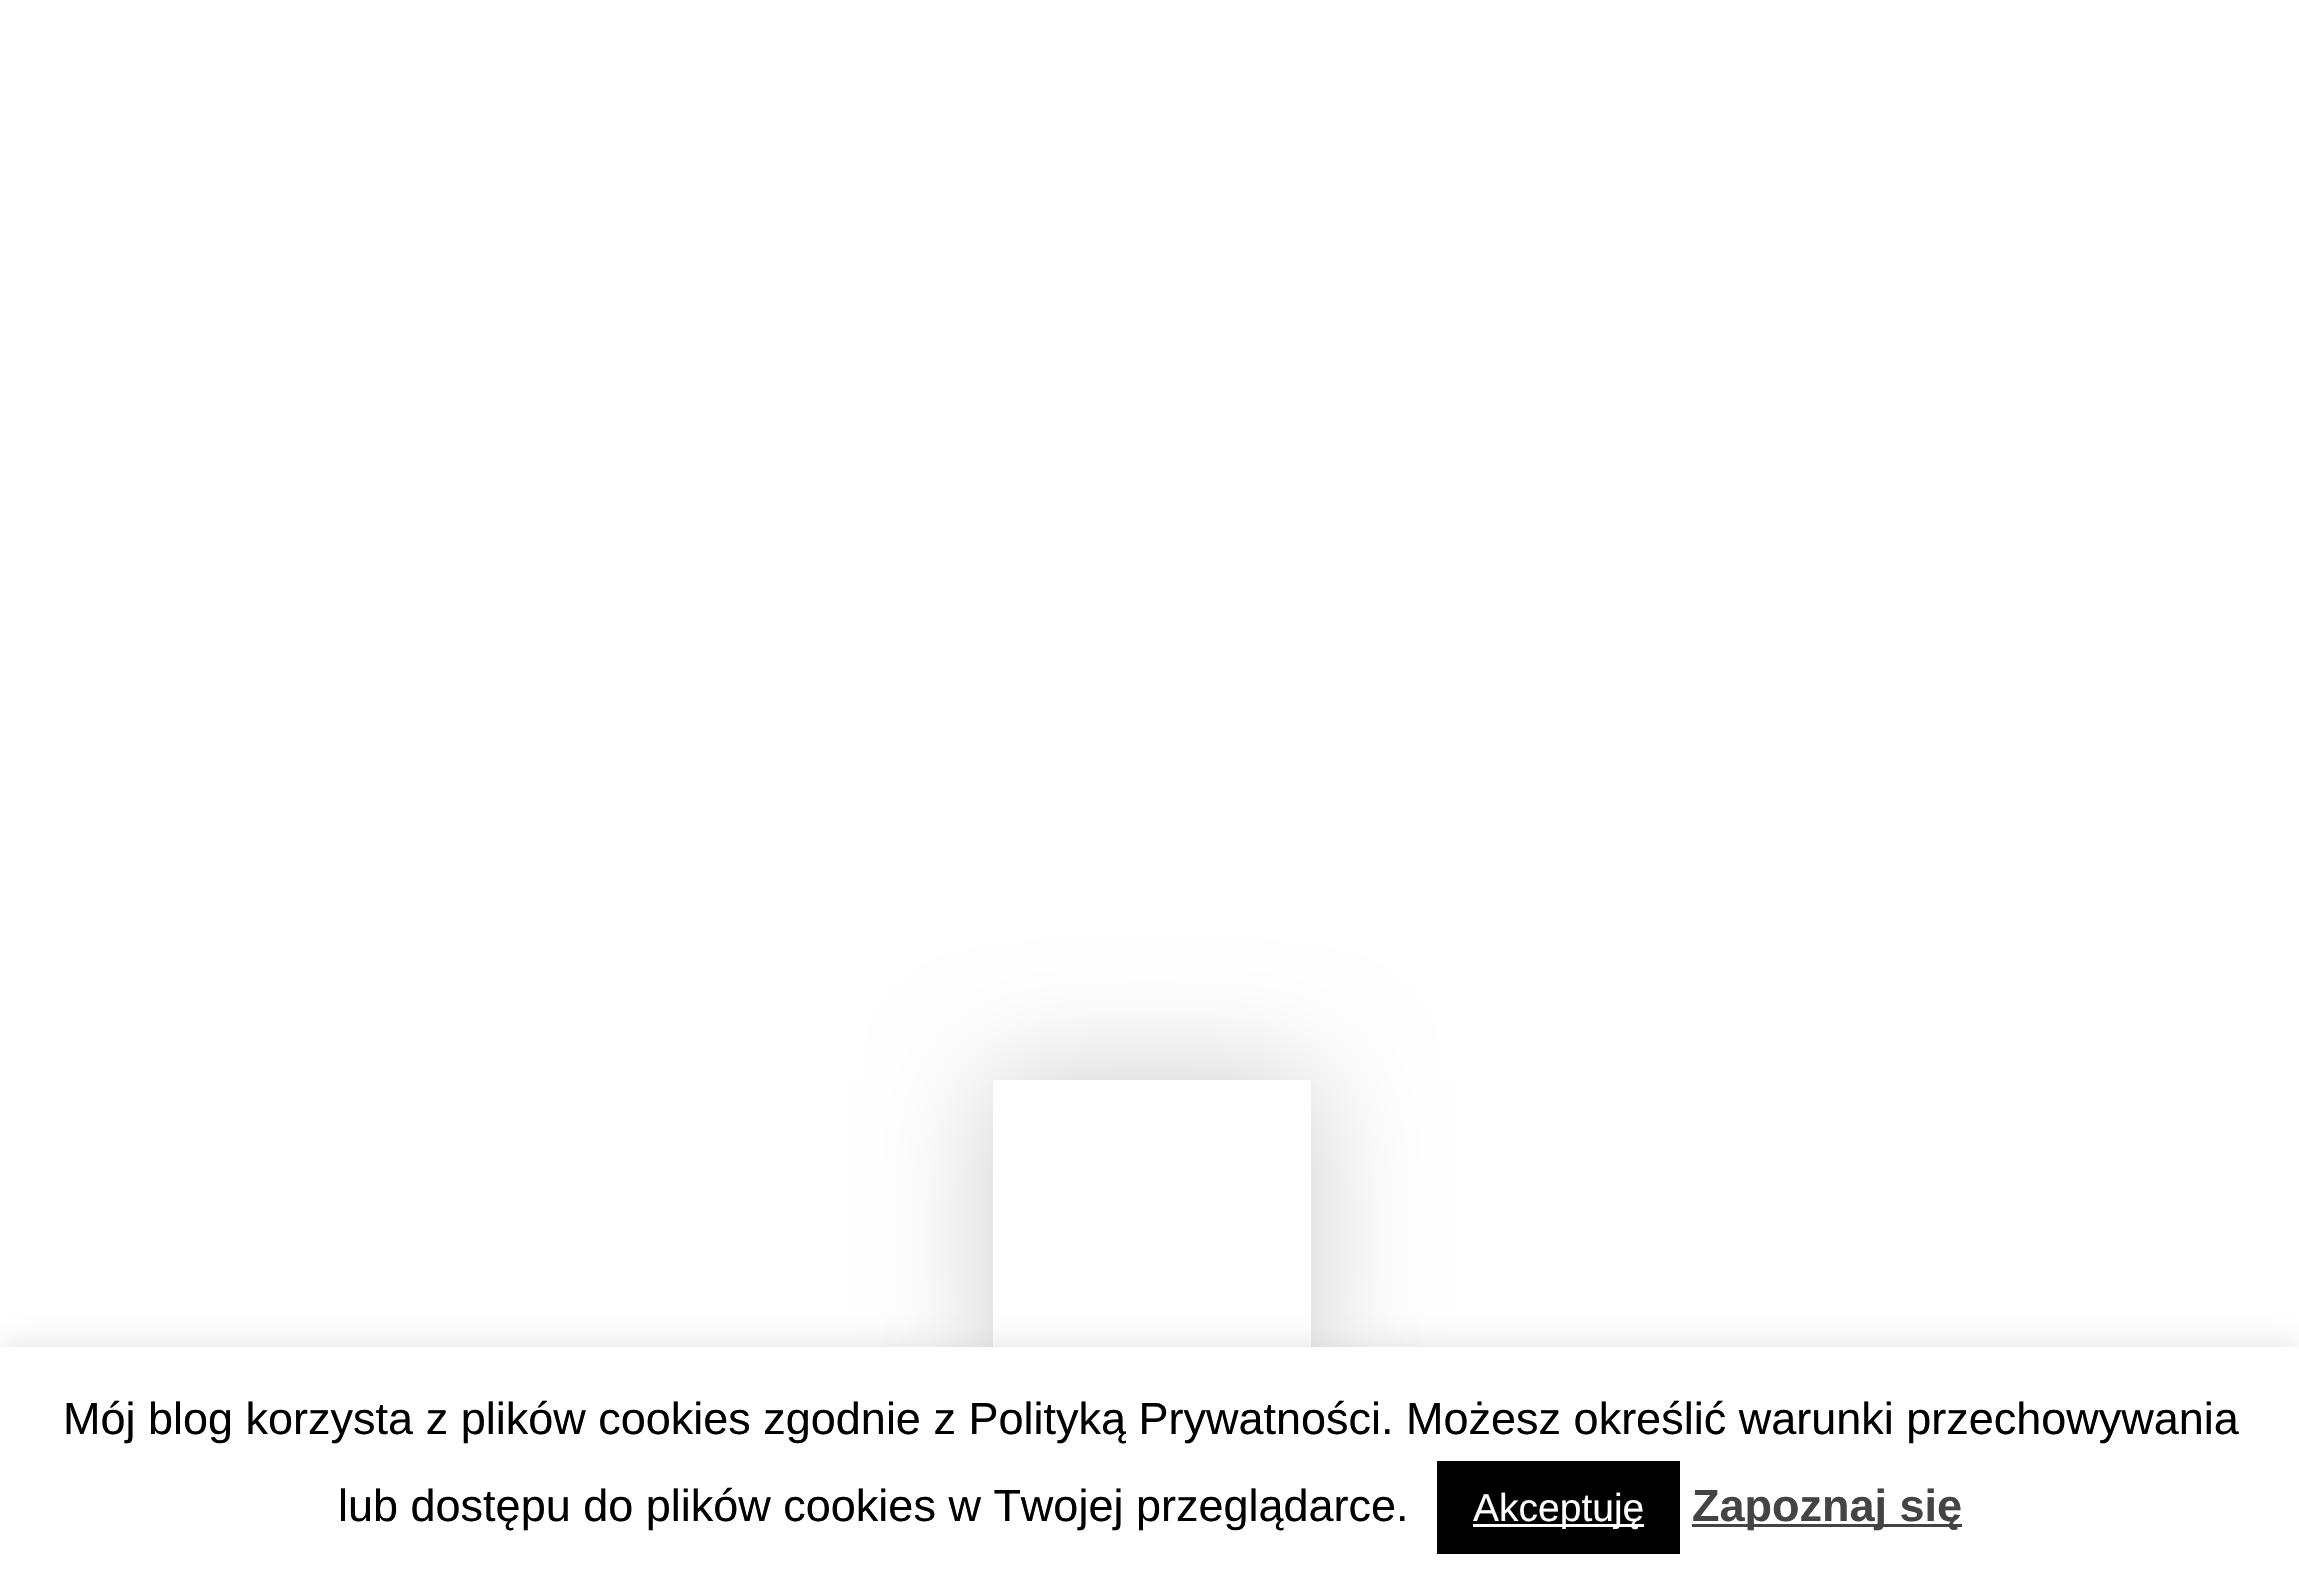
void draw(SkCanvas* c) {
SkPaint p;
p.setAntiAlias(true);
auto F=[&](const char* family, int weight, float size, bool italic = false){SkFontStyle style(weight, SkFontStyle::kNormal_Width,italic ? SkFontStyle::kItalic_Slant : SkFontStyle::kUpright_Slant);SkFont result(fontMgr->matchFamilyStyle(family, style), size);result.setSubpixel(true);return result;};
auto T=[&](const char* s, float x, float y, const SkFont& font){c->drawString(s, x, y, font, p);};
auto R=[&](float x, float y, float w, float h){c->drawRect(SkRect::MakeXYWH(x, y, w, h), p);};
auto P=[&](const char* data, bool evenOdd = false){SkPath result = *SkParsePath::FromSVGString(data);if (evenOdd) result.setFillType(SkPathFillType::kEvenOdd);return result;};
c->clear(0xffffffff);
c->save();
c->clipPath(P("M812 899h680v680h-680zm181 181h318v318h-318z",true),true);
p.setColor(0x33000000);
p.setMaskFilter(SkMaskFilter::MakeBlur(kNormal_SkBlurStyle, 60));
c->drawRect(SkRect::MakeXYWH(993,1080,318,318),p);
p.setMaskFilter(nullptr);
c->restore();
p.setColor(0x4dacabab);
p.setMaskFilter(SkMaskFilter::MakeBlur(kNormal_SkBlurStyle, 15));
c->drawRect(SkRect::MakeXYWH(0,1344,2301,243),p);
p.setMaskFilter(nullptr);
p.setColor(0xffffffff);
R(0,1347,2299,241);
auto f1 = F("Liberation Sans",400,45);
p.setColor(0xff000000);
T("Mój blog korzysta z plików cookies zgodnie z Polityką Prywatności. Możesz określić warunki przechowywania",63,1434,f1);
T("lub dostępu do plików cookies w Twojej przeglądarce.",338,1521,f1);
R(1437,1461,243,93);
p.setColor(0xffffffff);
R(1473,1524,171,3);
auto f2 = F("Liberation Sans",400,39);
T("Akceptuję",1473,1521,f2);
p.setColor(0xff444444);
R(1692,1524,270,3);
auto f3 = F("Liberation Sans",700,45);
T("Zapoznaj się",1692,1521,f3);
}
